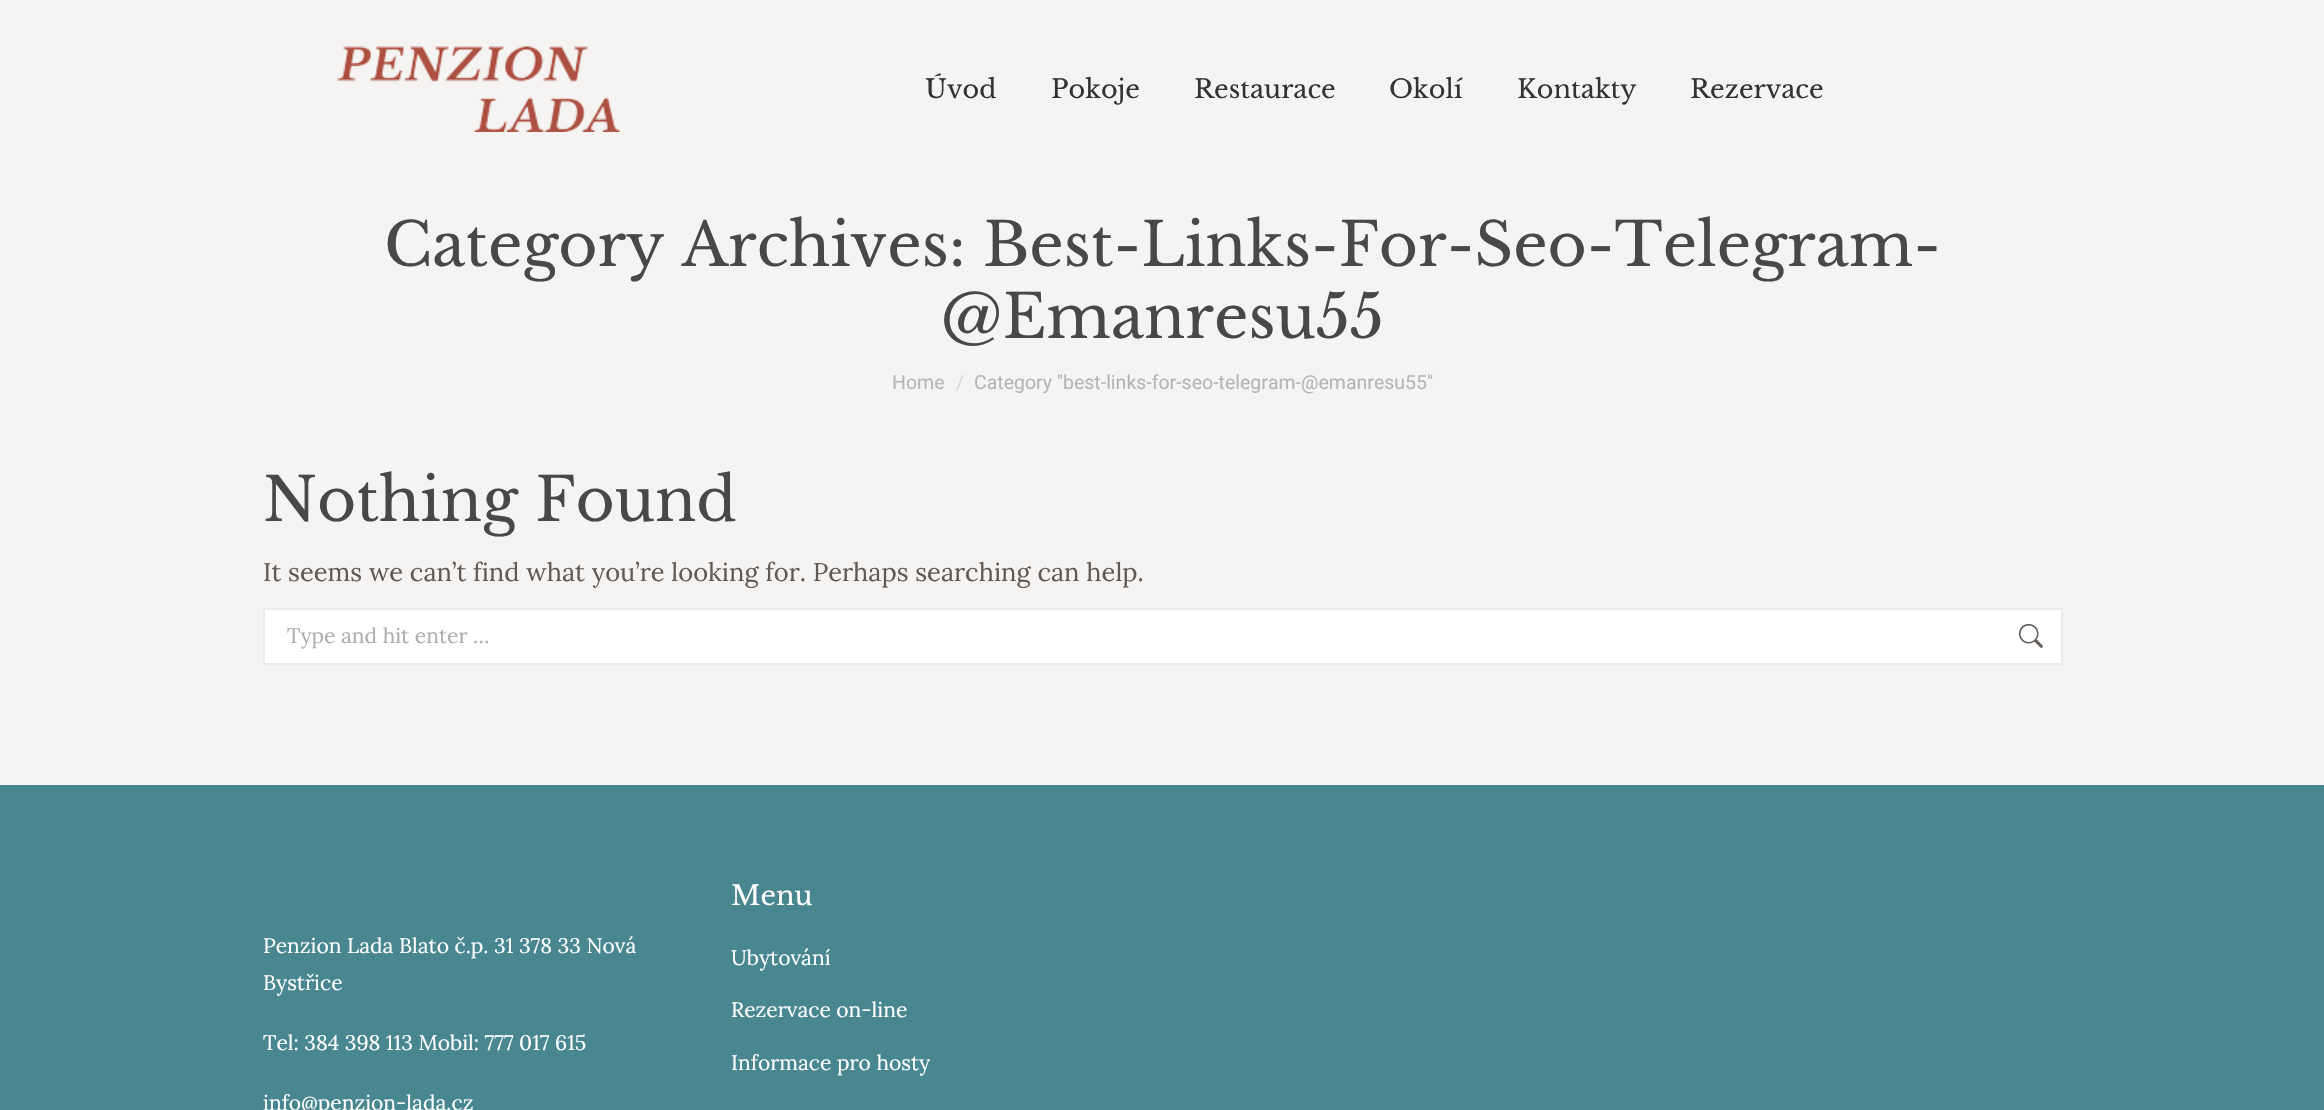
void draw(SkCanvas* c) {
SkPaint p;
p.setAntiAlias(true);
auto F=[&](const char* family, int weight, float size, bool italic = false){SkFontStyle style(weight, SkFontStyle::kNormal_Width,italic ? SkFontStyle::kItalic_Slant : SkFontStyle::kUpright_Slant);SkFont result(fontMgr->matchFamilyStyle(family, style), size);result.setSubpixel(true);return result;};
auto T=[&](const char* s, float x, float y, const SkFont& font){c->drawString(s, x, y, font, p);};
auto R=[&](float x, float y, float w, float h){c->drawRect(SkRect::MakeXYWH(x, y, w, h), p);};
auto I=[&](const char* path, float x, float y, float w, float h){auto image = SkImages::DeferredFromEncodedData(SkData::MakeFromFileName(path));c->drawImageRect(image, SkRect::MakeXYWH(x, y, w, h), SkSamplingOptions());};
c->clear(0xfff5f4f2);
I("1.png",337,46,283,86);
auto f1 = F("Libre Baskerville",400,25.5);
p.setColor(0xff333333);
T("Úvod",925,98,f1);
T("Pokoje",1051,98,f1);
T("Restaurace",1194,98,f1);
T("Okolí",1389,98,f1);
T("Kontakty",1517,98,f1);
T("Rezervace",1690,98,f1);
auto f2 = F("Libre Baskerville",400,60);
p.setColor(0xff494848);
T("Category Archives: Best-Links-For-Seo-Telegram-",384,266,f2);
T("@Emanresu55",941,338,f2);
auto f3 = F("Roboto",400,19.5);
p.setColor(0xffb4b5bb);
T("Home",892,389,f3);
p.setColor(0xffd5d5d7);
T("/",956,389,f3);
p.setColor(0xffb4b5bb);
T("Category \"best-links-for-seo-telegram-@emanresu55\"",974,389,f3);
p.setColor(0xff494848);
T("Nothing Found",263,521,f2);
auto f4 = F("Lora",400,25.5);
p.setColor(0xff605956);
T("It seems we can’t find what you’re looking for. Perhaps searching can help.",263,581,f4);
p.setColor(0xffffffff);
c->drawRect(SkRect::MakeXYWH(264,609,1798,55),p);
p.setStroke(true);
p.setStrokeWidth(2);
p.setColor(0xffecebeb);
c->drawRect(SkRect::MakeXYWH(264,609,1798,55),p);
auto f5 = F("Lora",400,21);
p.setStroke(false);
p.setColor(0xffb0acab);
T("Type and hit enter …",287,643,f5);
I("2.png",2019,624,24,24);
p.setColor(0xff488790);
R(0,785,2324,325);
p.setColor(0xffffffff);
T("Penzion Lada Blato č.p. 31 378 33 Nová",263,953,f5);
T("Bystřice",263,990,f5);
T("Tel: 384 398 113 Mobil: 777 017 615",263,1050,f5);
T("info@penzion-lada.cz",263,1110,f5);
auto f6 = F("Libre Baskerville",400,27);
T("Menu",731,905,f6);
T("Ubytování",731,965,f5);
T("Rezervace on-line",731,1017,f5);
T("Informace pro hosty",731,1070,f5);
}
